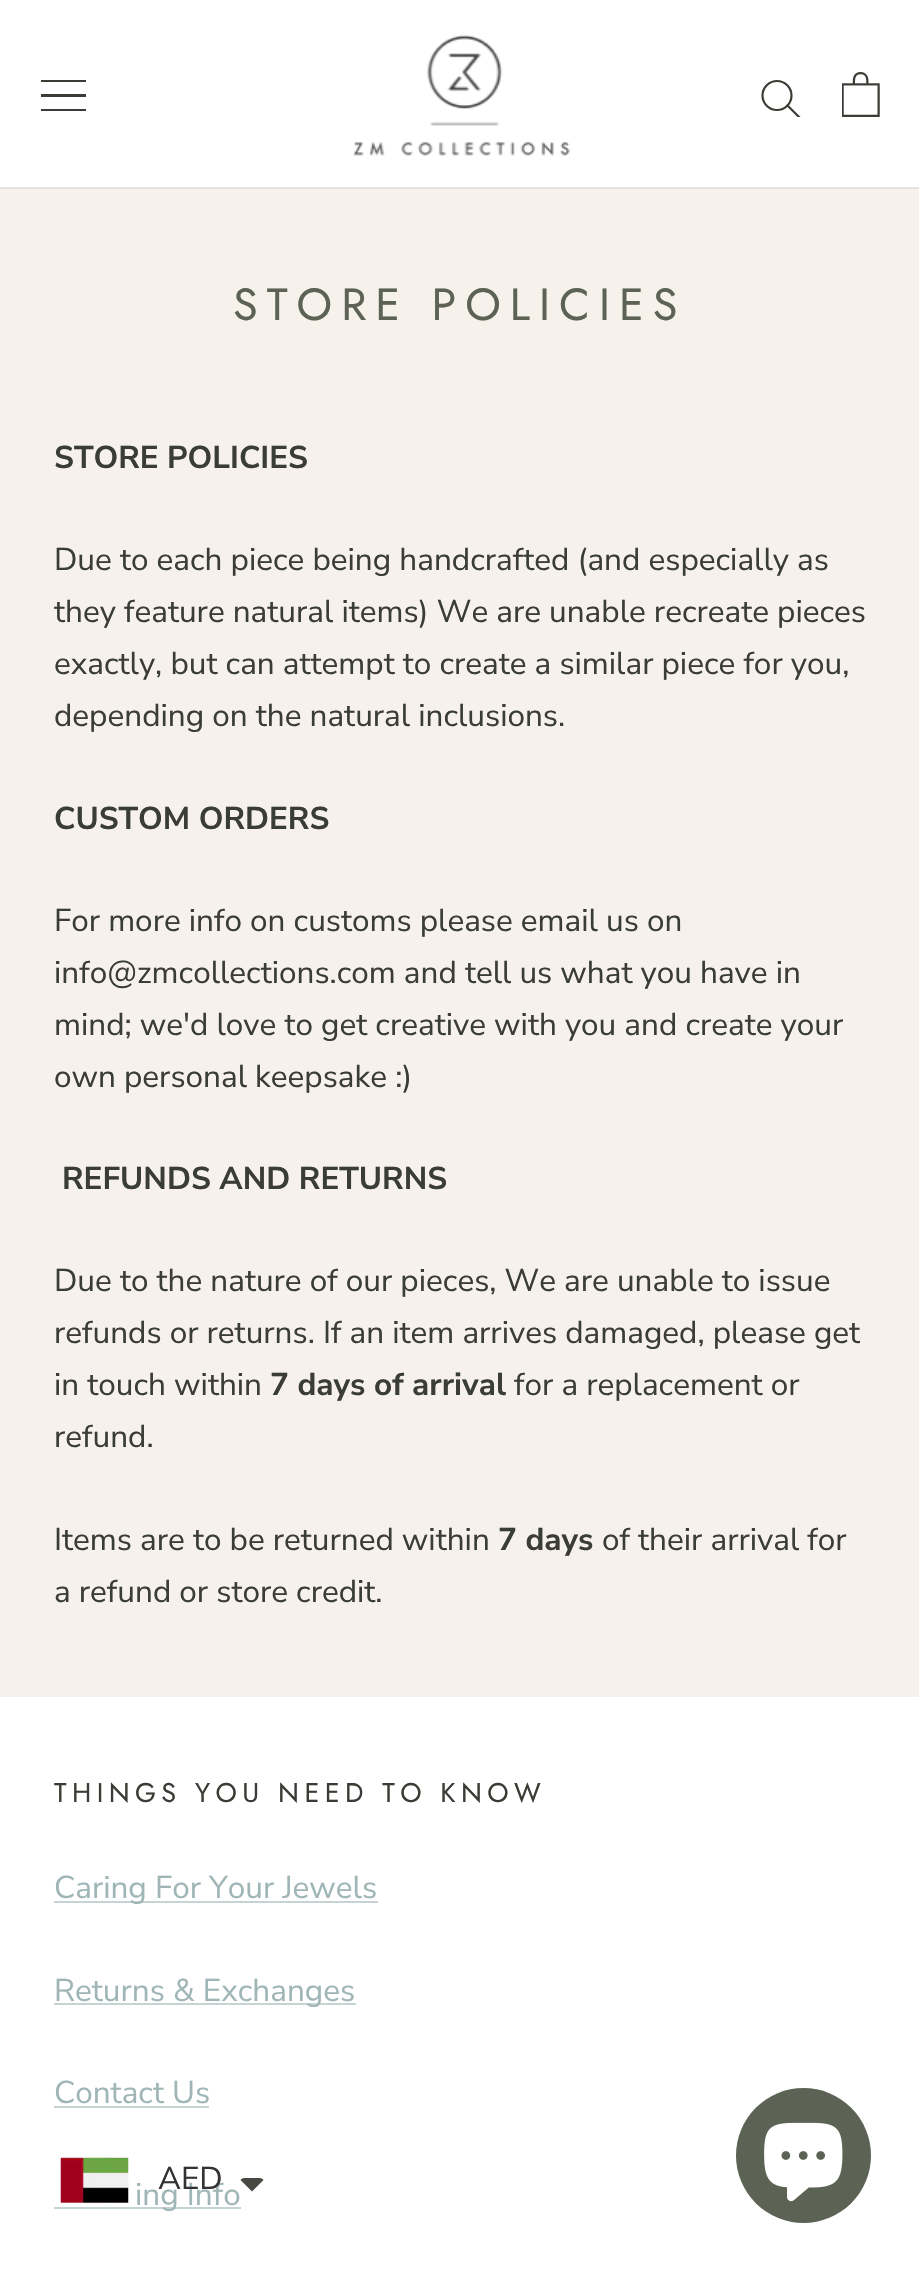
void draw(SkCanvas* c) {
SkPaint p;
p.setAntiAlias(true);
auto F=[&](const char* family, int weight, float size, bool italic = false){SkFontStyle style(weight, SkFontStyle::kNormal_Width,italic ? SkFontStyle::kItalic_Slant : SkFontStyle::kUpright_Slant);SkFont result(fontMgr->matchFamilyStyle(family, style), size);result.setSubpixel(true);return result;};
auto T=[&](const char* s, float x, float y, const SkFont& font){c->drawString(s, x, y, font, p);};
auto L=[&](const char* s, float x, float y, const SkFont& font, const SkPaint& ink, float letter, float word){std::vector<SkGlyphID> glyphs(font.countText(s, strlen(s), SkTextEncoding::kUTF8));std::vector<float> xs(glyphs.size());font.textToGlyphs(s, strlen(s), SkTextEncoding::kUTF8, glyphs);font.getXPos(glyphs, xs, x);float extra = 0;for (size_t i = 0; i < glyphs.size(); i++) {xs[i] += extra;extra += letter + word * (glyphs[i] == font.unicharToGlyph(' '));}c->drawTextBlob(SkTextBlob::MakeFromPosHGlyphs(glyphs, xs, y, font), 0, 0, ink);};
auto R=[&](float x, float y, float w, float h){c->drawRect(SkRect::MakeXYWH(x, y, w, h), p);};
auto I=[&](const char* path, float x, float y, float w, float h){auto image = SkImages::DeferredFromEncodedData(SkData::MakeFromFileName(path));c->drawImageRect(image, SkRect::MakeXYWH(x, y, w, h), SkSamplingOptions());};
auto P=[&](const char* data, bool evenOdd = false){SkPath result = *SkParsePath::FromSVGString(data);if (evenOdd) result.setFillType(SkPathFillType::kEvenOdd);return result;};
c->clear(0xfff6f1eb);
p.setColor(0xffffffff);
R(0,0,919,187);
p.setColor(0xffe1e2e1);
R(0,187,919,2);
c->save();
c->clipRect(SkRect::MakeXYWH(41,79,45,34));
p.setColor(0xff3a3d36);
c->drawPath(P("M40 111v-2h46v2zm0-17h46v3h-46zm0-14h46v2h-46z"),p);
c->restore();
I("1.png",353,35,218,121);
c->save();
c->clipRect(SkRect::MakeXYWH(761,79,40,38));
p.setStroke(true);
p.setStrokeWidth(2.2);
p.setStrokeCap(SkPaint::kSquare_Cap);
c->drawPath(P("M799 117l-11.5-11.5"),p);
c->restore();
p.setStrokeCap(SkPaint::kButt_Cap);
c->drawCircle(777,95.5,14.5,p);
I("2.png",842,72,38,45);
auto f1 = F("Jost",400,45);
p.setStroke(false);
p.setColor(0xff5c6254);
L("STORE POLICIES",233,320,f1,p,9,0);
auto f2 = F("Nunito Sans",700,31.5);
p.setColor(0xff3a3d36);
T("STORE POLICIES",54,468,f2);
auto f3 = F("Nunito Sans",400,31.5);
T("Due to each piece being handcrafted (and especially as",54,570,f3);
T("they feature natural items) We are unable recreate pieces",54,622,f3);
T("exactly, but can attempt to create a similar piece for you,",54,674,f3);
T("depending on the natural inclusions.",54,726,f3);
T("CUSTOM ORDERS",54,829,f2);
T("For more info on customs please email us on",54,931,f3);
T("info@zmcollections.com and tell us what you have in",54,983,f3);
T("mind; we'd love to get creative with you and create your",54,1035,f3);
T("own personal keepsake :)",54,1087,f3);
T("REFUNDS AND RETURNS",62,1189,f2);
T("Due to the nature of our pieces, We are unable to issue",54,1291,f3);
T("refunds or returns. If an item arrives damaged, please get",54,1343,f3);
T("in touch within",54,1395,f3);
T("7 days of arrival",270,1395,f2);
T("for a replacement or",514,1395,f3);
T("refund.",54,1447,f3);
T("Items are to be returned within",54,1550,f3);
T("7 days",498,1550,f2);
T("of their arrival for",602,1550,f3);
T("a refund or store credit.",54,1602,f3);
p.setColor(0xffffffff);
R(0,1697,919,573);
auto f4 = F("Jost",400,27);
p.setColor(0xff3a3d36);
L("THINGS YOU NEED TO KNOW",54,1802,f4,p,5.4,0);
p.setColor(0xffc6d3d3);
R(54,1901,324,2);
p.setColor(0xffa0b6b6);
T("Caring For Your Jewels",54,1898,f3);
p.setColor(0xffc6d3d3);
R(54,2003,302,2);
p.setColor(0xffa0b6b6);
T("Returns & Exchanges",54,2001,f3);
T("Contact Us",54,2103,f3);
p.setColor(0xffc6d3d3);
R(54,2106,155,2);
R(54,2207,187,2);
p.setColor(0xffa0b6b6);
T("ing Info",135,2205,f3);
I("3.png",60,2157,69,46);
p.setColor(0xff333333);
T("AED",158,2189,f3);
p.setColor(0xff474942);
c->drawPath(P("M245 2178c-1.5 0-3.5 .5-4.5 2l11.5 11.5l11.5-11.5c-1-1.5-3-2-4.5-2z"),p);
p.setColor(0xff5c6254);
c->drawCircle(803.5,2155.5,67.5,p);
I("4.png",764,2122,79,80);
}
